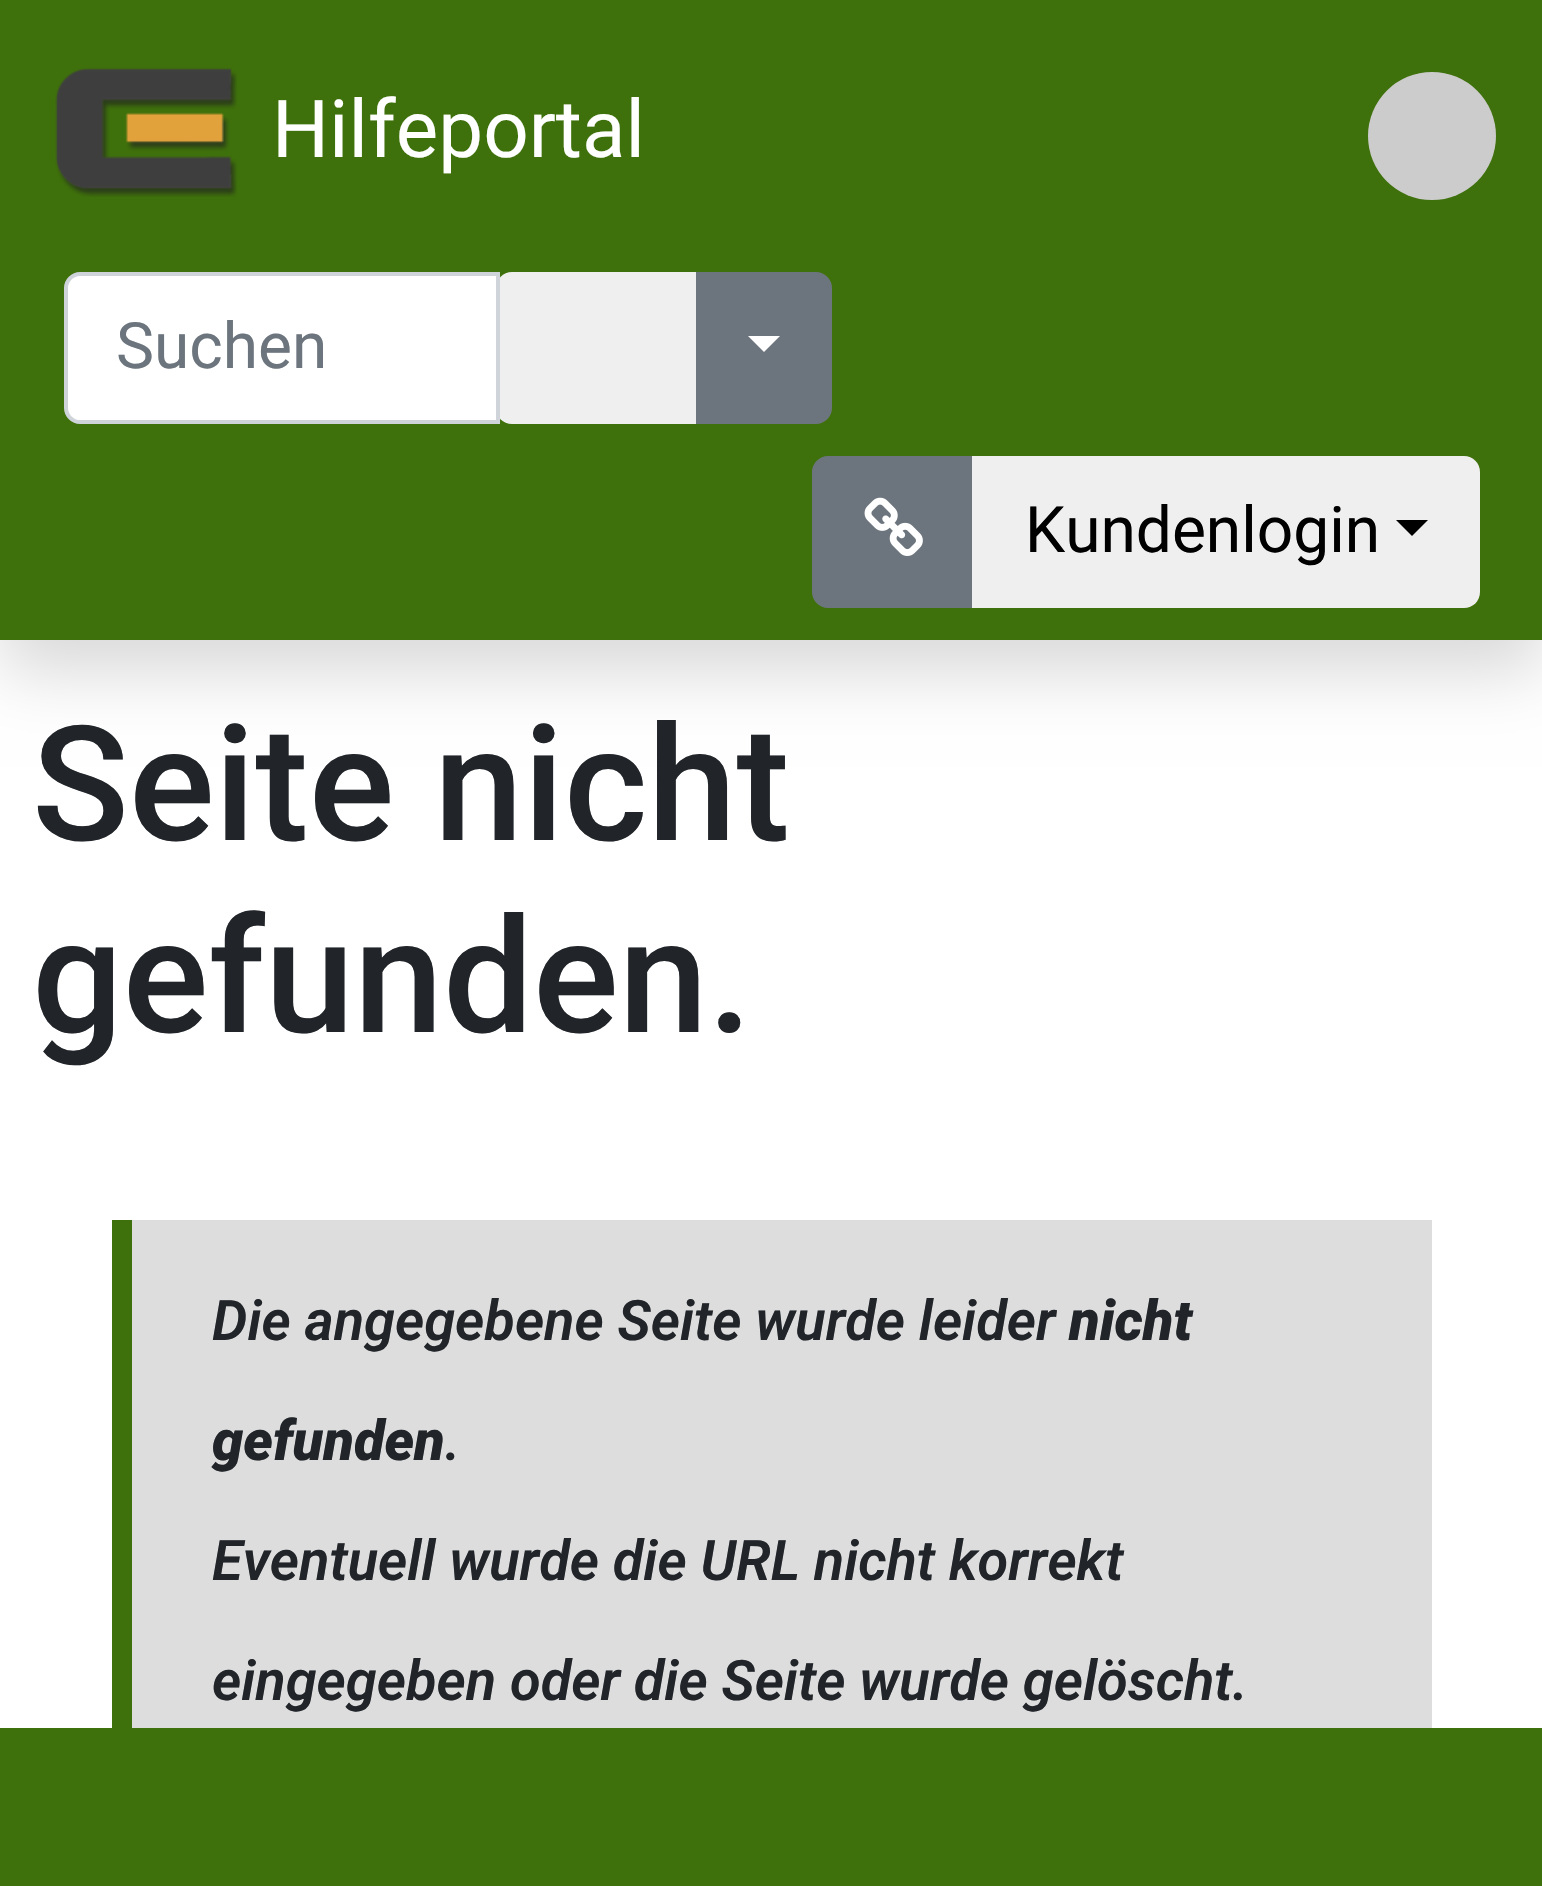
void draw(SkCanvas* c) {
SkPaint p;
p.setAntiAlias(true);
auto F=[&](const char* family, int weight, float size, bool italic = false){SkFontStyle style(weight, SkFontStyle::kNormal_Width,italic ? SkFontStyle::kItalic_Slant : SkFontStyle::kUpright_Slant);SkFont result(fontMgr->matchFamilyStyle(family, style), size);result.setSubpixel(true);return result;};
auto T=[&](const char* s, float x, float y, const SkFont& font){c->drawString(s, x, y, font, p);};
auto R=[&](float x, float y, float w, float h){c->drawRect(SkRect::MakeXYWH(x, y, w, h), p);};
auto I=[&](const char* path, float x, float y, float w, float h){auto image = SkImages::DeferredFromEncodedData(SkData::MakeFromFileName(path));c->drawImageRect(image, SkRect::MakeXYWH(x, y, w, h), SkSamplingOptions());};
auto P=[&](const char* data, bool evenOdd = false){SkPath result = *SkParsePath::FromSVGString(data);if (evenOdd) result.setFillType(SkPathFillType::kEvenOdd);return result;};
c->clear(0xffffffff);
p.setColor(0x26000000);
p.setMaskFilter(SkMaskFilter::MakeBlur(kNormal_SkBlurStyle, 32));
c->drawRect(SkRect::MakeXYWH(0,32,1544,640),p);
p.setMaskFilter(nullptr);
p.setColor(0xff3e700b);
R(0,0,1542,640);
I("1.png",55,68,182,129);
auto f1 = F("Roboto",400,80);
p.setColor(0xffffffff);
T("Hilfeportal",272,157,f1);
p.setColor(0xffcccccc);
c->drawCircle(1432,136,64,p);
p.setColor(0xffefefef);
c->drawPath(P("M512 272h184v152h-184c-9 0-16-7-16-16v-120c0-9 7-16 16-16z"),p);
p.setColor(0xffffffff);
c->drawPath(P("M80 274h418v148h-418c-7.5 0-14-6.5-14-14v-120c0-7.5 6.5-14 14-14z"),p);
p.setStroke(true);
p.setStrokeWidth(4);
p.setColor(0xffced4da);
c->drawPath(P("M80 274h418v148h-418c-7.5 0-14-6.5-14-14v-120c0-7.5 6.5-14 14-14z"),p);
auto f2 = F("Roboto",400,64);
p.setStroke(false);
p.setColor(0xff6c757d);
T("Suchen",116,368,f2);
c->drawPath(P("M698 274h118c7.5 0 14 6.5 14 14v120c0 7.5-6.5 14-14 14h-118z"),p);
p.setStroke(true);
c->drawPath(P("M698 274h118c7.5 0 14 6.5 14 14v120c0 7.5-6.5 14-14 14h-118z"),p);
p.setStroke(false);
p.setColor(0xffffffff);
c->drawPath(P("M748 336h32l-16 16z"),p);
p.setColor(0xff6c757d);
c->drawPath(P("M828 458h146v148h-146c-7.5 0-14-6.5-14-14v-120c0-7.5 6.5-14 14-14z"),p);
p.setStroke(true);
c->drawPath(P("M828 458h146v148h-146c-7.5 0-14-6.5-14-14v-120c0-7.5 6.5-14 14-14z"),p);
I("2.png",864,497,59,59);
p.setStroke(false);
p.setColor(0xffefefef);
c->drawPath(P("M972 456h492c9 0 16 7 16 16v120c0 9-7 16-16 16h-492z"),p);
p.setColor(0xff000000);
T("Kundenlogin",1025,552,f2);
c->drawPath(P("M1396 520h32l-16 16z"),p);
auto f3 = F("Roboto",500,160);
p.setColor(0xff212529);
T("Seite nicht",32,840,f3);
T("gefunden.",32,1032,f3);
p.setColor(0xffdddddd);
R(132,1220,1300,508);
p.setColor(0xff3e700b);
R(112,1220,20,508);
auto f4 = F("Roboto",600,56,true);
p.setColor(0xff212529);
T("Die angegebene Seite wurde leider",212,1340,f4);
auto f5 = F("Roboto",900,56,true);
T("nicht",1069,1340,f5);
T("gefunden",212,1460,f5);
T(".",445,1460,f4);
T("Eventuell wurde die URL nicht korrekt",212,1580,f4);
T("eingegeben oder die Seite wurde gelöscht.",212,1700,f4);
p.setColor(0xff3e700b);
R(0,1728,1542,158);
}
